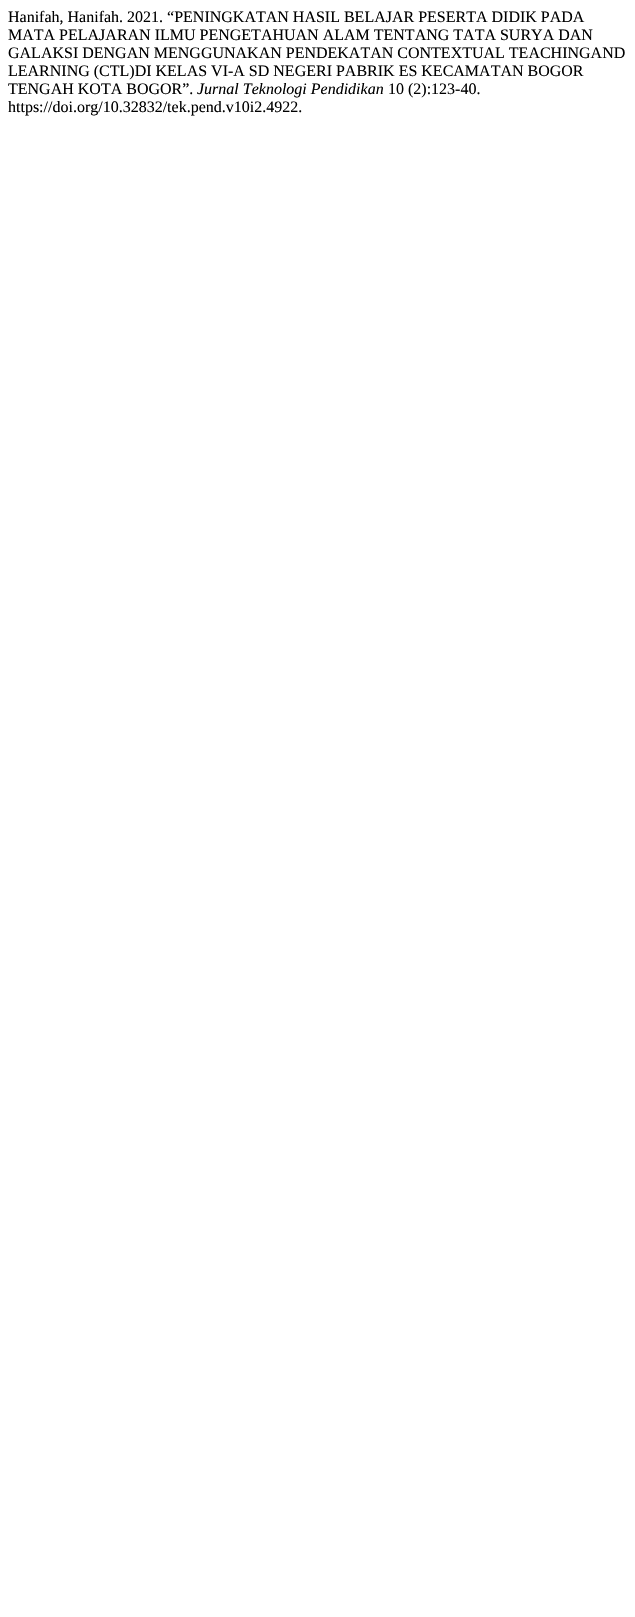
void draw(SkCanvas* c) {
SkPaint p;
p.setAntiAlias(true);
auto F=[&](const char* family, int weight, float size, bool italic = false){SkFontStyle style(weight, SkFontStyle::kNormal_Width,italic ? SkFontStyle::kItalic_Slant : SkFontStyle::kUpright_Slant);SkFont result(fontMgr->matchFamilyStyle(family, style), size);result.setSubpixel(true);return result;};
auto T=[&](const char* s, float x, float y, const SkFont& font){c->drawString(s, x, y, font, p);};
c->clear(0xffffffff);
auto f1 = F("Liberation Serif",400,16);
p.setColor(0xff000000);
T("Hanifah, Hanifah. 2021. “PENINGKATAN HASIL BELAJAR PESERTA DIDIK PADA",8,22,f1);
T("MATA PELAJARAN ILMU PENGETAHUAN ALAM TENTANG TATA SURYA DAN",8,40,f1);
T("GALAKSI DENGAN MENGGUNAKAN PENDEKATAN CONTEXTUAL TEACHINGAND",8,58,f1);
T("LEARNING (CTL)DI KELAS VI-A SD NEGERI PABRIK ES KECAMATAN BOGOR",8,76,f1);
T("TENGAH KOTA BOGOR”.",8,94,f1);
auto f2 = F("Liberation Serif",400,16,true);
T("Jurnal Teknologi Pendidikan",197,94,f2);
T("10 (2):123-40.",388,94,f1);
T("https://doi.org/10.32832/tek.pend.v10i2.4922.",8,112,f1);
}
